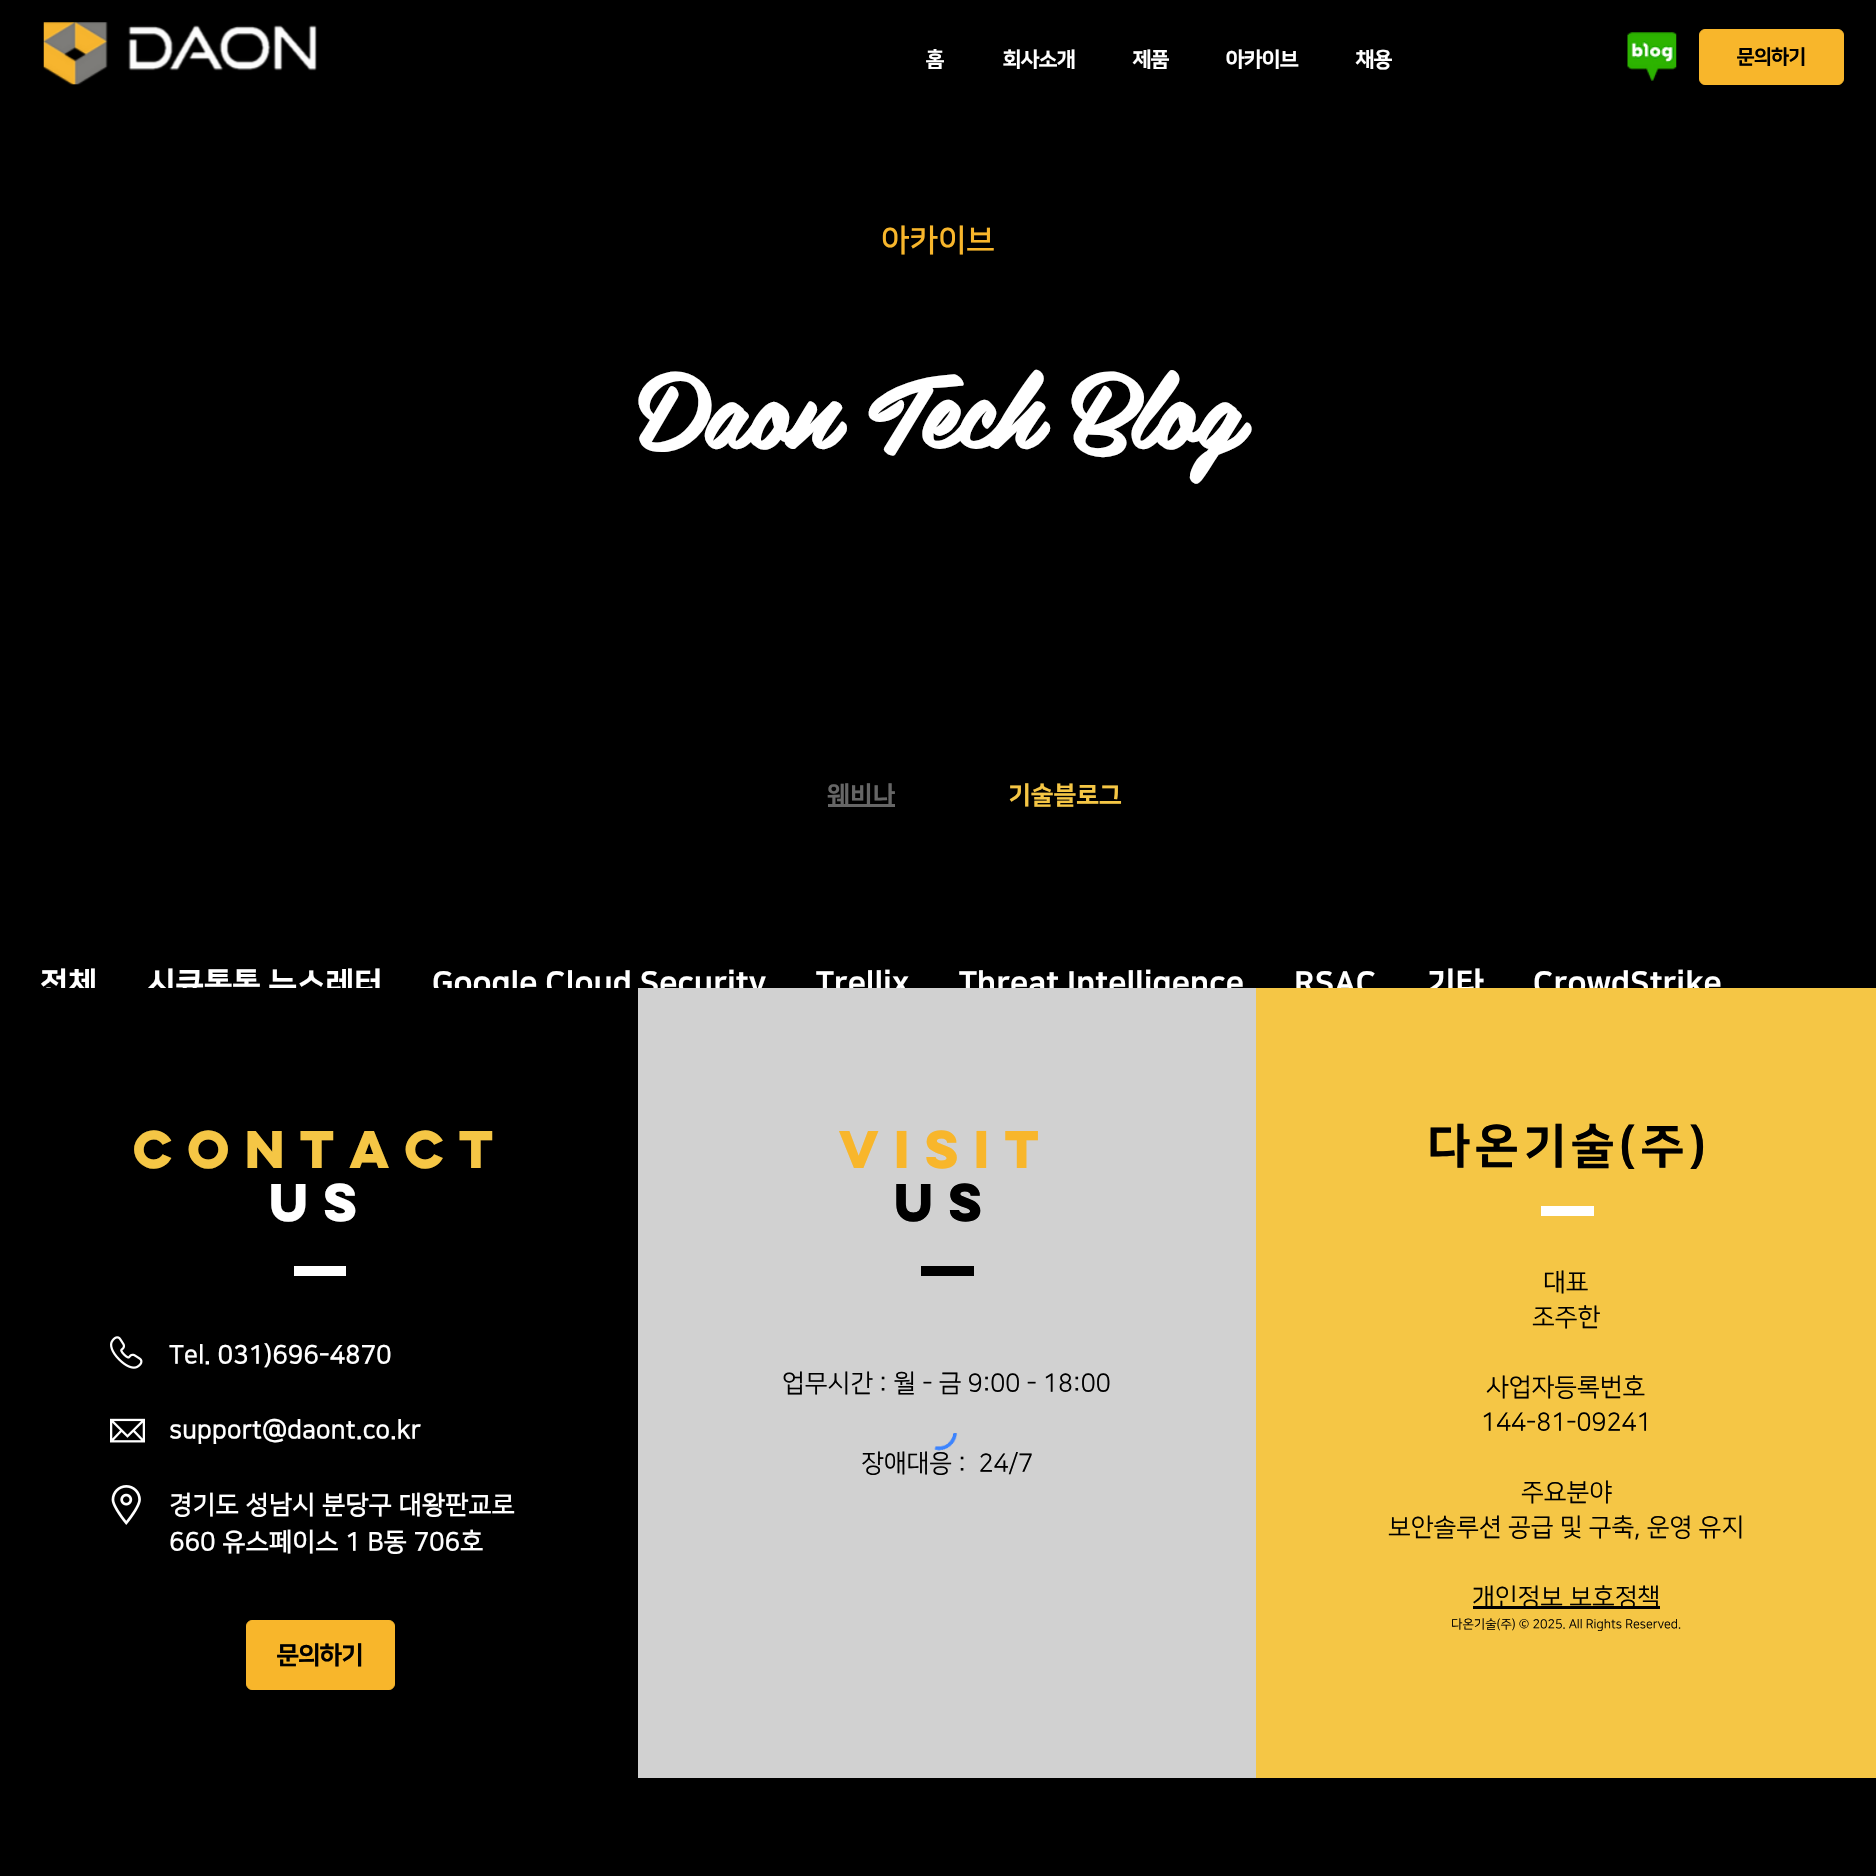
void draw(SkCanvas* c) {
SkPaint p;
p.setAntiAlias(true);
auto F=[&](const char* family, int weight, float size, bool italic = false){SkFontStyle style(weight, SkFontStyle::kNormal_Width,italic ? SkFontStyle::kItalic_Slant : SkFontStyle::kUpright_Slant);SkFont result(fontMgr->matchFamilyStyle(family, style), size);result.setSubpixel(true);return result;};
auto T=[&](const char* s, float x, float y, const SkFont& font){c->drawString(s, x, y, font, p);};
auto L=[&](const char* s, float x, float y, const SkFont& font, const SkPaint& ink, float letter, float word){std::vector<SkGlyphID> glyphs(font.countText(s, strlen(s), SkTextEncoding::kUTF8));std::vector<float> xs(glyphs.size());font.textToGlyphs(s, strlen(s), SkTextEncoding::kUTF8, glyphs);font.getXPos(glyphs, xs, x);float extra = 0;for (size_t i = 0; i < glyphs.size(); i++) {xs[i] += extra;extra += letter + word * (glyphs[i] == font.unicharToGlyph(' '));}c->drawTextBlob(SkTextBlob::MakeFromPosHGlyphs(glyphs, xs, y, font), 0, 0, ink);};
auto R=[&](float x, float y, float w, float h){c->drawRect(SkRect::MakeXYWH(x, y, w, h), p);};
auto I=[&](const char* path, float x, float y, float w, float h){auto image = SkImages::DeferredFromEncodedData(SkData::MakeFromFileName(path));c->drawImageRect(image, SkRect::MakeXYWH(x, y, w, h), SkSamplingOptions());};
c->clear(0xff000000);
I("1.png",43,22,65,63);
I("2.png",128,25,189,46);
auto f1 = F("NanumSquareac",800,21);
p.setColor(0xffffffff);
T("홈",926,66,f1);
T("회사소개",1003,66,f1);
T("제품",1133,66,f1);
T("아카이브",1226,66,f1);
T("채용",1356,66,f1);
I("3.png",1627,32,50,49);
p.setColor(0xfff8b62b);
c->drawRoundRect(SkRect::MakeXYWH(1699.5,29.5,144,55),5.5,5.5,p);
p.setStroke(true);
p.setStrokeWidth(1);
c->drawRoundRect(SkRect::MakeXYWH(1699.5,29.5,144,55),5.5,5.5,p);
auto f2 = F("NanumSquareac",800,20);
p.setStroke(false);
p.setColor(0xff000000);
T("문의하기",1737,63,f2);
auto f3 = F("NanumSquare",700,31.25);
p.setColor(0xfff8b62b);
T("아카이브",881,250,f3);
auto f4 = F("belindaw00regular",700,102.5);
p.setColor(0xffffffff);
T("Daon Tech Blog",637,449,f4);
p.setColor(0xff666666);
R(828,804,67,3);
auto f5 = F("NanumSquare",800,25);
T("웨비나",827,803,f5);
p.setColor(0xfff5c645);
T("기술블로그",1008,803,f5);
auto f6 = F("NanumSquare",800,31.25);
p.setColor(0xffffffff);
T("전체",40,993,f6);
T("시큐톡톡 뉴스레터",147,993,f6);
T("Google Cloud Security",432,993,f6);
T("Trellix",816,993,f6);
T("Threat Intelligence",959,993,f6);
T("RSAC",1294,993,f6);
T("기타",1427,993,f6);
T("CrowdStrike",1533,993,f6);
p.setColor(0xffd1d1d1);
R(638,988,618,790);
p.setColor(0xff000000);
R(46,988,584,13);
auto f7 = F("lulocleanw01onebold",700,47.5);
p.setColor(0xfff5c645);
L("CONTACT",133,1168,f7,p,4.75,0);
p.setColor(0xffffffff);
L("US",269,1221,f7,p,4.75,0);
R(294,1266,52,10);
I("4.png",110,1336,33,33);
auto f8 = F("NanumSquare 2",700,25);
L("Tel. 031)696-4870",169,1363,f8,p,.5,0);
L("support@daont.co.kr",169,1438,f8,p,.5,0);
L("경기도 성남시 분당구 대왕판교로",169,1513,f8,p,.5,0);
L("660 유스페이스 1 B동 706호",169,1550,f8,p,.5,0);
I("5.png",110,1418,35,25);
I("6.png",111,1485,30,40);
p.setColor(0xfff8b62b);
c->drawRoundRect(SkRect::MakeXYWH(246.5,1620.5,148,69),5.5,5.5,p);
p.setStroke(true);
c->drawRoundRect(SkRect::MakeXYWH(246.5,1620.5,148,69),5.5,5.5,p);
auto f9 = F("NanumSquareac",800,25);
p.setStroke(false);
p.setColor(0xff000000);
T("문의하기",277,1663,f9);
p.setColor(0xfff8b62b);
L("VISIT",839,1168,f7,p,4.75,0);
p.setColor(0xff000000);
L("US",894,1221,f7,p,4.75,0);
R(921,1266,53,10);
auto f10 = F("NanumSquare",400,25);
T("업무시간 : 월 - 금 9:00 - 18:00",782,1391,f10);
T("장애대응 :  24/7",861,1471,f10);
p.setColor(0xfff5c645);
R(1256,988,620,790);
auto f11 = F("NanumSquare",800,47.5);
p.setColor(0xff000000);
L("다온기술(주)",1427,1161,f11,p,4.75,0);
p.setColor(0xffffffff);
R(1541,1206,53,10);
p.setColor(0xff000000);
T("대표",1543,1290,f10);
T("조주한",1532,1325,f10);
T("사업자등록번호",1486,1395,f10);
T("144-81-09241",1481,1430,f10);
T("주요분야",1521,1500,f10);
T("보안솔루션 공급 및 구축, 운영 유지",1388,1535,f10);
R(1473,1606,187,3);
T("개인정보 보호정책",1472,1605,f10);
auto f12 = F("NanumSquare",400,12.5);
T("다온기술(주) © 2025. All Rights Reserved.",1451,1628,f12);
I("7.png",934,1433,24,18);
}
